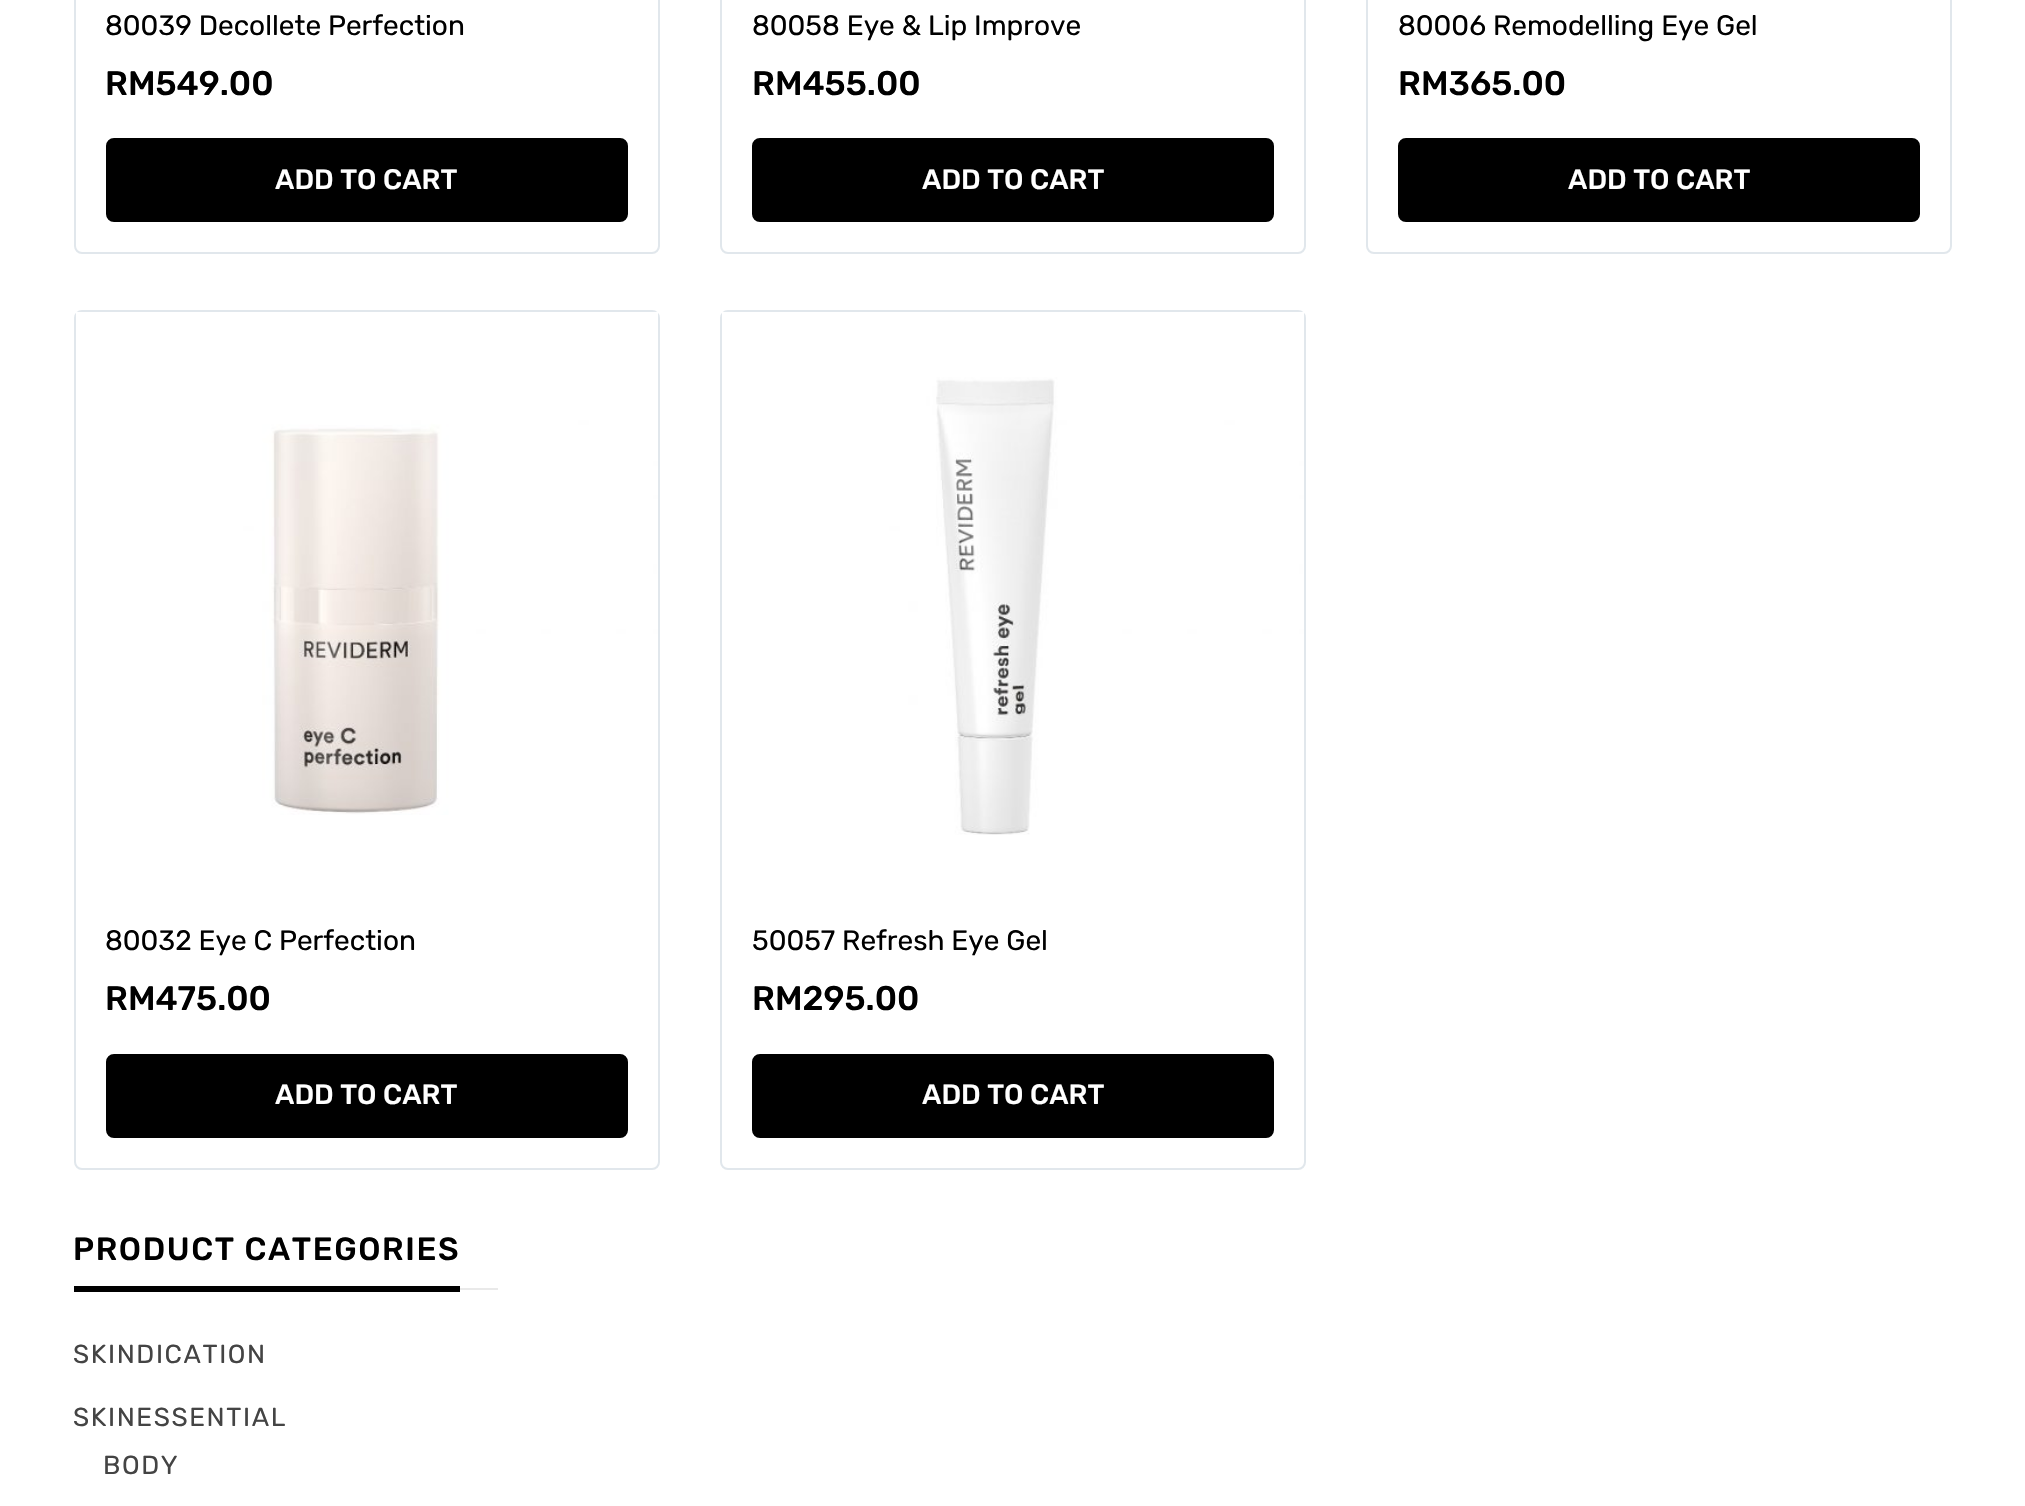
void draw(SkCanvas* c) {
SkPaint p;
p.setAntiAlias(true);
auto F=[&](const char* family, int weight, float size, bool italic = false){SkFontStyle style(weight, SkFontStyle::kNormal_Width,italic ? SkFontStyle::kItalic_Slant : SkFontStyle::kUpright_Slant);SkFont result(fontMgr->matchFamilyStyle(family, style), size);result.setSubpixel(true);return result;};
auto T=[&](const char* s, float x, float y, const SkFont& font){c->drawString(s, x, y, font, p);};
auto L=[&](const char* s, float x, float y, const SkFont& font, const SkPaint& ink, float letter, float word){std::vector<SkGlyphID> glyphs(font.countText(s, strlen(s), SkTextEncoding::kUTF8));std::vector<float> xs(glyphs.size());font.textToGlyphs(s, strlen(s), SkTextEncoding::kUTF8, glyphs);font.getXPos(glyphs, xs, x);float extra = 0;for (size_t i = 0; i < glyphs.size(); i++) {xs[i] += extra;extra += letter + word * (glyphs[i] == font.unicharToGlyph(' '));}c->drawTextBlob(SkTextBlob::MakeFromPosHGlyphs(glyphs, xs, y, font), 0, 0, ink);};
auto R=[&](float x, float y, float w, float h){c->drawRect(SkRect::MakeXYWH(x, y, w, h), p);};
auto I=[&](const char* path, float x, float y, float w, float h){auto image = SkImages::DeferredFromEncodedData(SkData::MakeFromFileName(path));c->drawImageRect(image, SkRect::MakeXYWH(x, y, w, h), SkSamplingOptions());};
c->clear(0xffffffff);
p.setStroke(true);
p.setStrokeWidth(2);
p.setColor(0xffe1e7ec);
c->drawRoundRect(SkRect::MakeXYWH(75,-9,584,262),7,7,p);
auto f1 = F("Rubik",400,28);
p.setStroke(false);
p.setColor(0xff000000);
T("80039 Decollete Perfection",105,35,f1);
auto f2 = F("Rubik",500,34);
T("RM549.00",105,95,f2);
c->drawRoundRect(SkRect::MakeXYWH(107,139,520,82),7,7,p);
p.setStroke(true);
c->drawRoundRect(SkRect::MakeXYWH(107,139,520,82),7,7,p);
auto f3 = F("Rubik",500,28);
p.setStroke(false);
p.setColor(0xffffffff);
T("ADD TO CART",275,189,f3);
p.setStroke(true);
p.setColor(0xffe1e7ec);
c->drawRoundRect(SkRect::MakeXYWH(721,-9,584,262),7,7,p);
p.setStroke(false);
p.setColor(0xff000000);
T("80058 Eye & Lip Improve",752,35,f1);
T("RM455.00",752,95,f2);
c->drawRoundRect(SkRect::MakeXYWH(753,139,520,82),7,7,p);
p.setStroke(true);
c->drawRoundRect(SkRect::MakeXYWH(753,139,520,82),7,7,p);
p.setStroke(false);
p.setColor(0xffffffff);
T("ADD TO CART",922,189,f3);
p.setStroke(true);
p.setColor(0xffe1e7ec);
c->drawRoundRect(SkRect::MakeXYWH(1367,-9,584,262),7,7,p);
p.setStroke(false);
p.setColor(0xff000000);
T("80006 Remodelling Eye Gel",1398,35,f1);
T("RM365.00",1398,95,f2);
c->drawRoundRect(SkRect::MakeXYWH(1399,139,520,82),7,7,p);
p.setStroke(true);
c->drawRoundRect(SkRect::MakeXYWH(1399,139,520,82),7,7,p);
p.setStroke(false);
p.setColor(0xffffffff);
T("ADD TO CART",1568,189,f3);
p.setStroke(true);
p.setColor(0xffe1e7ec);
c->drawRoundRect(SkRect::MakeXYWH(75,311,584,858),7,7,p);
I("1.png",76,312,582,503);
p.setStroke(false);
p.setColor(0xff000000);
T("80032 Eye C Perfection",105,950,f1);
T("RM475.00",105,1010,f2);
c->drawRoundRect(SkRect::MakeXYWH(107,1055,520,82),7,7,p);
p.setStroke(true);
c->drawRoundRect(SkRect::MakeXYWH(107,1055,520,82),7,7,p);
p.setStroke(false);
p.setColor(0xffffffff);
T("ADD TO CART",275,1104,f3);
p.setStroke(true);
p.setColor(0xffe1e7ec);
c->drawRoundRect(SkRect::MakeXYWH(721,311,584,858),7,7,p);
I("2.png",722,312,582,523);
p.setStroke(false);
p.setColor(0xff000000);
T("50057 Refresh Eye Gel",752,950,f1);
T("RM295.00",752,1010,f2);
c->drawRoundRect(SkRect::MakeXYWH(753,1055,520,82),7,7,p);
p.setStroke(true);
c->drawRoundRect(SkRect::MakeXYWH(753,1055,520,82),7,7,p);
p.setStroke(false);
p.setColor(0xffffffff);
T("ADD TO CART",922,1104,f3);
p.setColor(0xffe9e9e9);
R(460,1288,38,2);
auto f4 = F("Rubik",500,32);
p.setColor(0xff000000);
L("PRODUCT CATEGORIES",73,1260,f4,p,1.6,0);
R(74,1286,386,6);
auto f5 = F("Rubik",400,26);
p.setColor(0xff444444);
L("SKINDICATION",73,1363,f5,p,1.6,0);
L("SKINESSENTIAL",73,1426,f5,p,1.6,0);
L("BODY",103,1474,f5,p,1.6,0);
}
